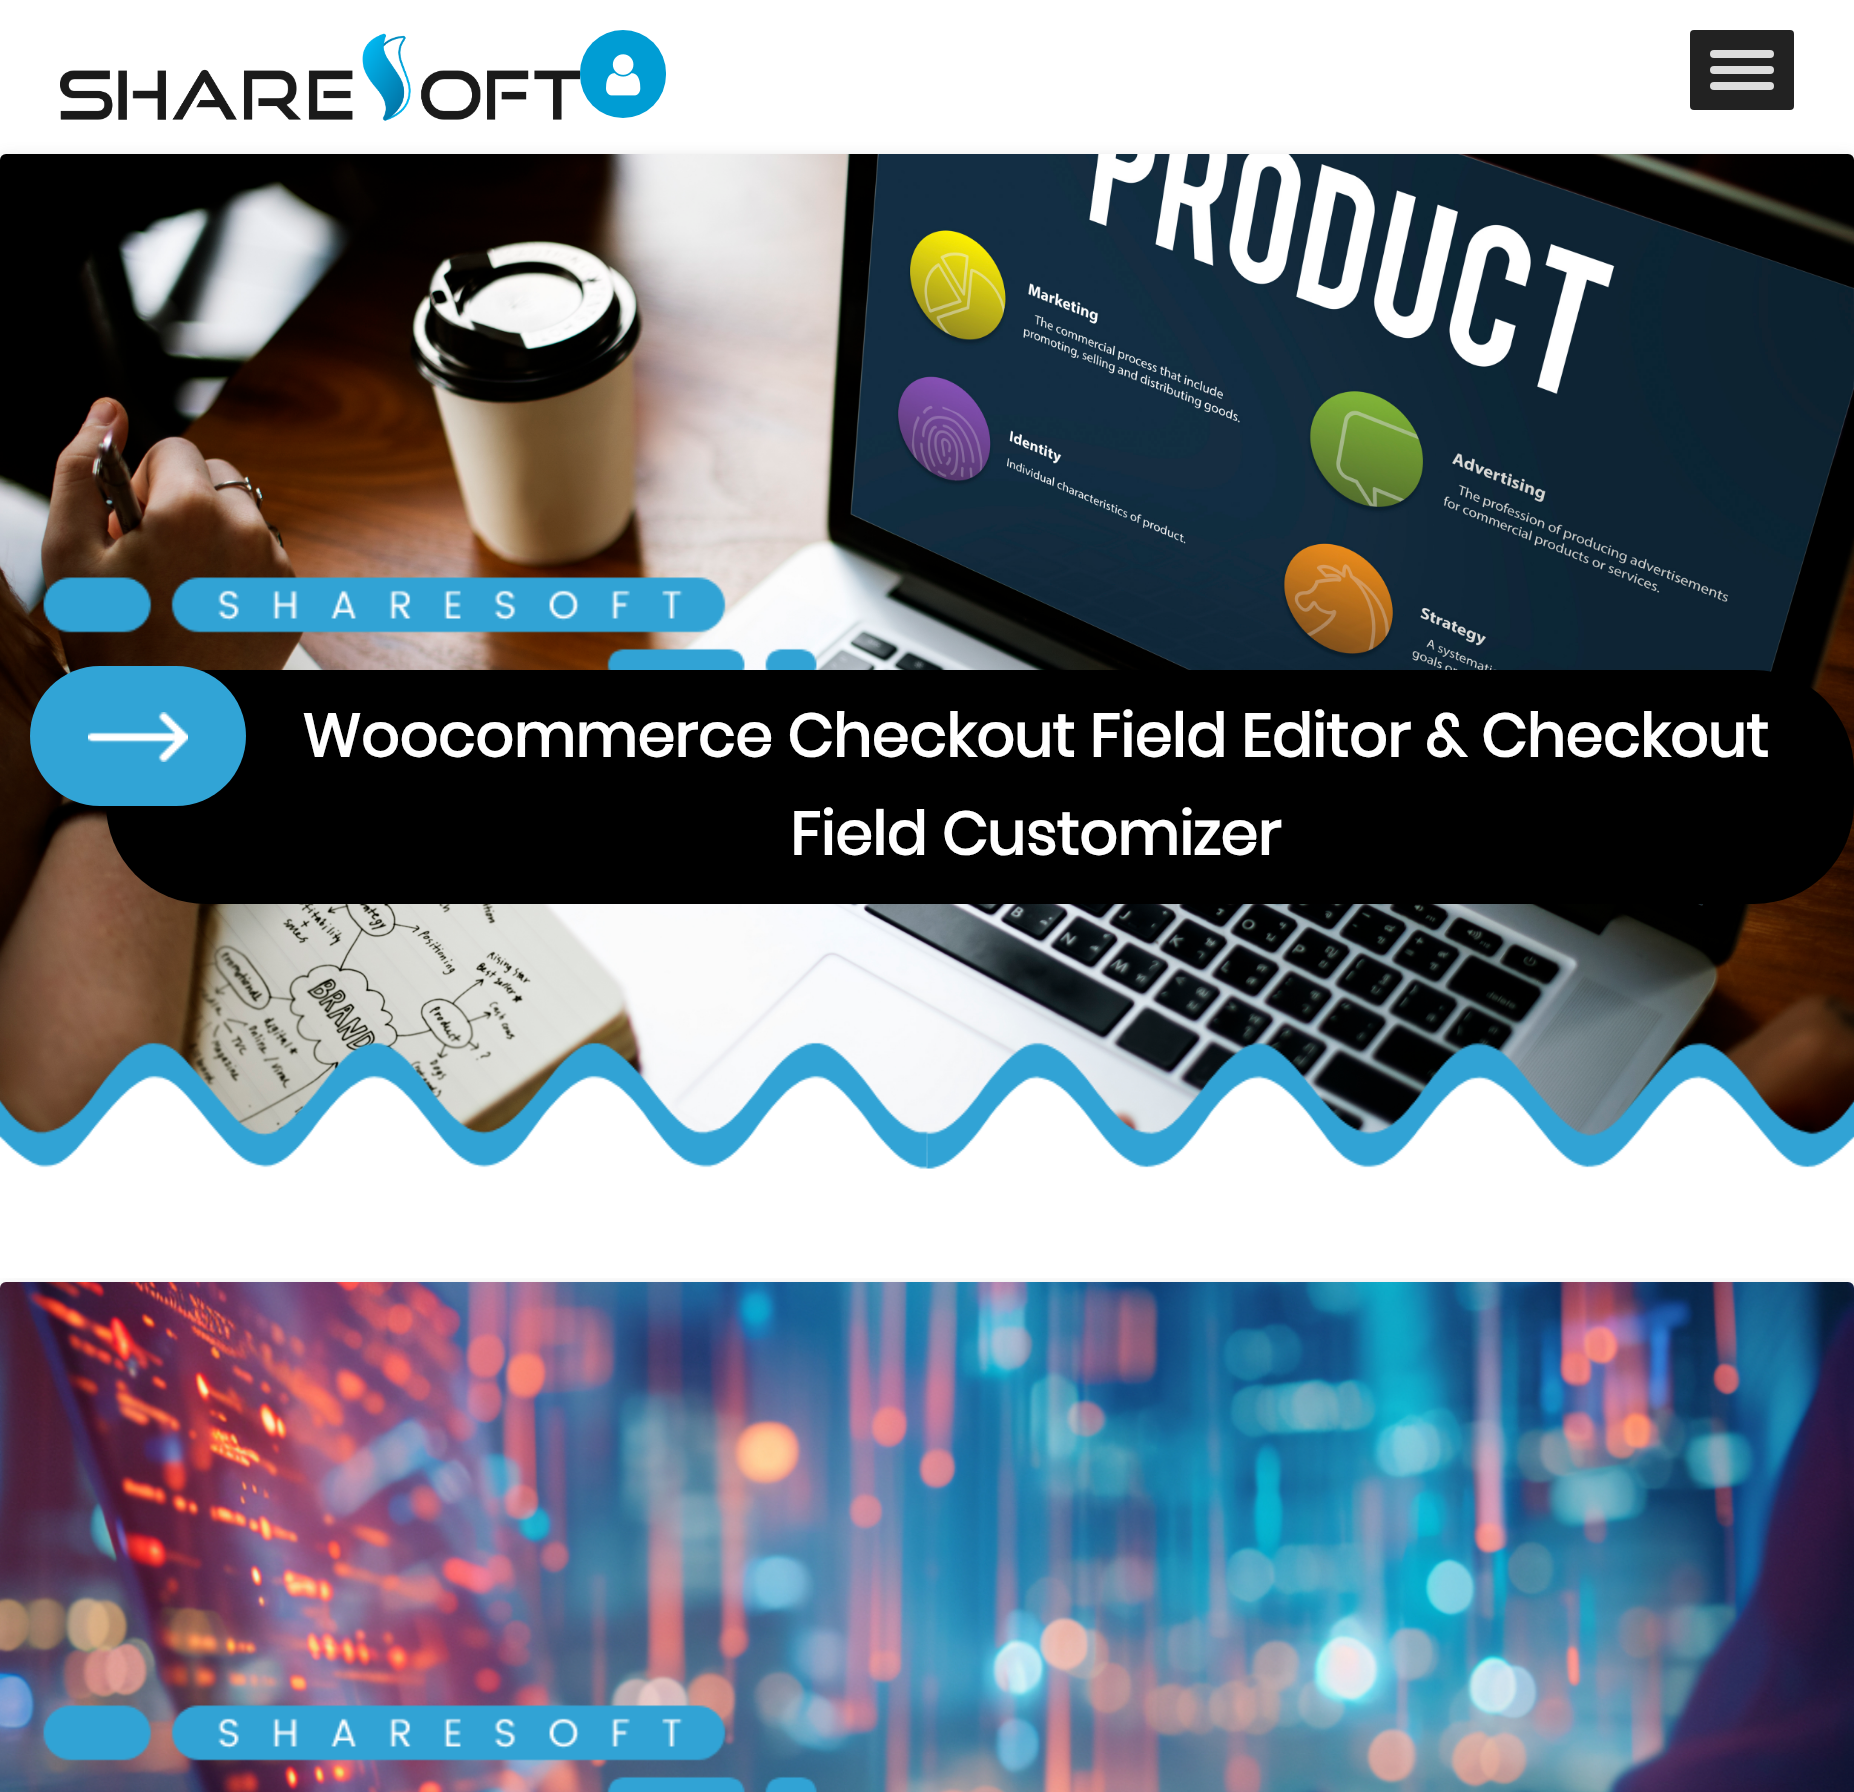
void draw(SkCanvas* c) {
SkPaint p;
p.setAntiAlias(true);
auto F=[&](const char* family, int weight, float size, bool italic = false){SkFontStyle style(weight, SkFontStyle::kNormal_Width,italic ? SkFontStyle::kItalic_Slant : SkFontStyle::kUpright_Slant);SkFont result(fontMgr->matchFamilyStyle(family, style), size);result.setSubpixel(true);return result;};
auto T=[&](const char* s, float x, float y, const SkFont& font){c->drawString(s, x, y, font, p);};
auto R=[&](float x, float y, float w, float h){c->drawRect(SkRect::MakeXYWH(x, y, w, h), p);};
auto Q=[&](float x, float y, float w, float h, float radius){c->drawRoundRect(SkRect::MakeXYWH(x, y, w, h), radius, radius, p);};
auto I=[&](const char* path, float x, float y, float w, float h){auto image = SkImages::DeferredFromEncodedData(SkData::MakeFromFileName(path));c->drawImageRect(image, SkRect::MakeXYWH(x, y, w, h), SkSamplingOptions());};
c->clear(0xffffffff);
I("1.png",60,33,520,88);
p.setColor(0xff009dd4);
Q(580,30,86,88,43);
I("2.png",606,54,35,42);
p.setColor(0xff222222);
Q(1690,30,104,80,4);
p.setColor(0xffdddddd);
Q(1710,50,64,8,4);
Q(1710,66,64,8,4);
Q(1710,82,64,8,4);
p.setColor(0x33636363);
p.setMaskFilter(SkMaskFilter::MakeBlur(kNormal_SkBlurStyle, 8));
c->drawRect(SkRect::MakeXYWH(0,158,1854,1000),p);
p.setMaskFilter(nullptr);
p.setColor(0xfff7f7f7);
R(0,155,1854,5);
I("3.png",0,154,1854,1000);
I("4.png",43,577,774,93);
p.setColor(0xff000000);
Q(106,670,1748,234,100);
p.setColor(0xff31a4d6);
Q(30,666,216,140,70);
I("5.png",88,712,100,50);
auto f1 = F("Poppins",700,60);
p.setColor(0xffffffff);
T("Woocommerce Checkout Field Editor & Checkout",302,757,f1);
T("Field Customizer",790,855,f1);
p.setColor(0x33636363);
p.setMaskFilter(SkMaskFilter::MakeBlur(kNormal_SkBlurStyle, 8));
c->drawRect(SkRect::MakeXYWH(0,1286,1854,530),p);
p.setMaskFilter(nullptr);
I("6.png",0,1042,1854,236);
p.setColor(0xfff7f7f7);
R(0,1283,1854,5);
I("7.png",0,1282,1854,510);
I("8.png",43,1705,774,87);
}
